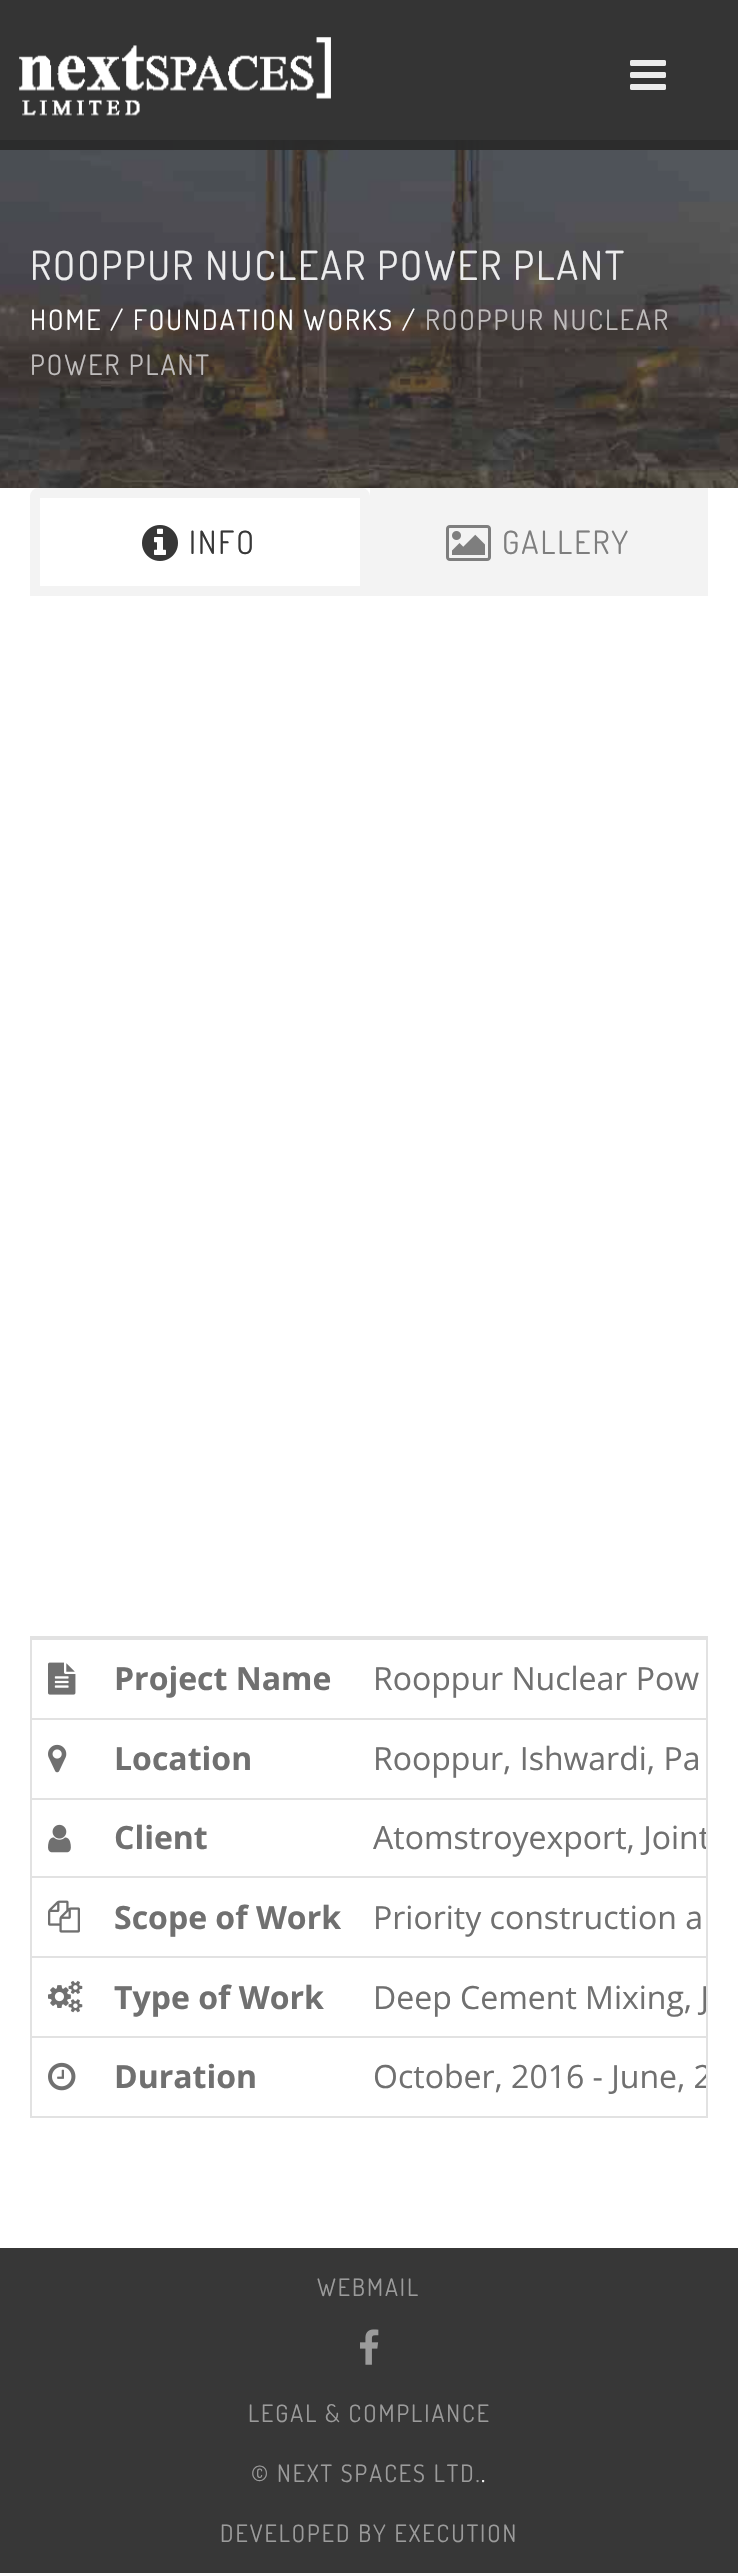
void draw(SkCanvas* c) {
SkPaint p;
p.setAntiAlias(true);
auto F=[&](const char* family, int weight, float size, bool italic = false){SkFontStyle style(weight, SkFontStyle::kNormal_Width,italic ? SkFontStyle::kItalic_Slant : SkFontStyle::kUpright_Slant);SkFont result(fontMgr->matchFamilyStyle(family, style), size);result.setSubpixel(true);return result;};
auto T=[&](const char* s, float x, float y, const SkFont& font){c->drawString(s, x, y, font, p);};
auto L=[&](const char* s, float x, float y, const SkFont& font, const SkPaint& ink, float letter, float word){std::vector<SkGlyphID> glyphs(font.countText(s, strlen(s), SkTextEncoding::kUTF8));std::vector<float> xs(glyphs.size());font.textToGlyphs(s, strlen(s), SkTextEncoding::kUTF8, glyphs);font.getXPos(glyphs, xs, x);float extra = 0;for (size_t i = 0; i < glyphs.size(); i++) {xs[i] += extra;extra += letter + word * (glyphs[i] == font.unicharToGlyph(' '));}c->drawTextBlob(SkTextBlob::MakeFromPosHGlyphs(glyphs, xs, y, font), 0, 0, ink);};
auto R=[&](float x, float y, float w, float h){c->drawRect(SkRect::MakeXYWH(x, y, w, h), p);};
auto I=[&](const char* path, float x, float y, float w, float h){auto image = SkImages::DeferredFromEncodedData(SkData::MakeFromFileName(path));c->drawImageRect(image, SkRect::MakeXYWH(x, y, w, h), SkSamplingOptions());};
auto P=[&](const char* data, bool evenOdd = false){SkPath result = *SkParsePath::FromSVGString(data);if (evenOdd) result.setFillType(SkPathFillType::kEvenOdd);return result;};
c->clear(0xffffffff);
I("3.png",0,140,738,348);
p.setColor(0xf2292929);
R(0,0,738,150);
I("1.png",19,37,312,79);
I("2.png",630,60,36,30);
auto f1 = F("Dosis",400,40);
p.setColor(0xffececed);
L("ROOPPUR NUCLEAR POWER PLANT",30,280,f1,p,2,0);
auto f2 = F("Dosis",400,28);
p.setColor(0xffffffff);
L("HOME / FOUNDATION WORKS /",30,330,f2,p,2,0);
p.setColor(0xffbfbcbc);
L("ROOPPUR NUCLEAR",425,330,f2,p,2,0);
L("POWER PLANT",30,375,f2,p,2,0);
p.setStroke(true);
p.setStrokeWidth(10);
p.setColor(0xfff3f3f3);
c->drawPath(P("M38 493h324c1.5 0 3 1.5 3 3v95h-330v-95c0-1.5 1.5-3 3-3z"),p);
I("4.png",142,525,36,36);
auto f3 = F("Dosis",400,32);
p.setStroke(false);
p.setColor(0xff373737);
L("INFO",189,554,f3,p,2,0);
p.setColor(0xfff3f3f3);
R(370,488,338,108);
I("5.png",446,525,45,36);
p.setColor(0xff7e7e7e);
L("GALLERY",502,554,f3,p,2,0);
p.setStroke(true);
p.setStrokeWidth(2);
p.setColor(0xffe2e2e2);
c->drawRect(SkRect::MakeXYWH(31,1637,676,480),p);
I("6.png",48,1662,28,33);
auto f4 = F("Open Sans",700,32);
p.setStroke(false);
p.setColor(0xff707070);
T("Project Name",114,1690,f4);
p.setColor(0xffe2e2e2);
R(32,1638,674,2);
auto f5 = F("Open Sans",400,32);
p.setColor(0xff707070);
T("Rooppur Nuclear Pow",373,1690,f5);
I("7.png",48,1744,19,29);
T("Location",114,1770,f4);
p.setColor(0xffe2e2e2);
R(32,1718,674,2);
p.setColor(0xff707070);
T("Rooppur, Ishwardi, Pa",373,1770,f5);
I("8.png",48,1824,23,29);
T("Client",114,1849,f4);
p.setColor(0xffe2e2e2);
R(32,1798,674,2);
c->save();
c->clipRect(SkRect::MakeXYWH(32,1638,674,478));
p.setColor(0xff707070);
T("Atomstroyexport, Joint",373,1849,f5);
c->restore();
I("9.png",48,1900,32,33);
T("Scope of Work",114,1929,f4);
p.setColor(0xffe2e2e2);
R(32,1876,674,2);
p.setColor(0xff707070);
T("Priority construction a",373,1929,f5);
I("10.png",48,1980,35,33);
T("Type of Work",114,2009,f4);
p.setColor(0xffe2e2e2);
R(32,1956,674,2);
c->save();
c->clipRect(SkRect::MakeXYWH(32,1638,674,478));
p.setColor(0xff707070);
T("Deep Cement Mixing, J",373,2009,f5);
c->restore();
I("11.png",48,2062,28,29);
T("Duration",114,2088,f4);
p.setColor(0xffe2e2e2);
R(32,2036,674,2);
c->save();
c->clipRect(SkRect::MakeXYWH(32,1638,674,478));
p.setColor(0xff707070);
T("October, 2016 - June, 2",373,2088,f5);
c->restore();
p.setColor(0xff373737);
R(0,2248,738,325);
auto f6 = F("Dosis",400,24);
p.setColor(0xff9b9b9b);
L("WEBMAIL",317,2296,f6,p,2,0);
I("12.png",360,2329,19,36);
L("LEGAL & COMPLIANCE",248,2422,f6,p,2,0);
L("© NEXT SPACES LTD.",251,2482,f6,p,2,0);
p.setColor(0xffffffff);
L(".",481,2482,f6,p,2,0);
p.setColor(0xff9b9b9b);
L("DEVELOPED BY EXECUTION",220,2542,f6,p,2,0);
}
